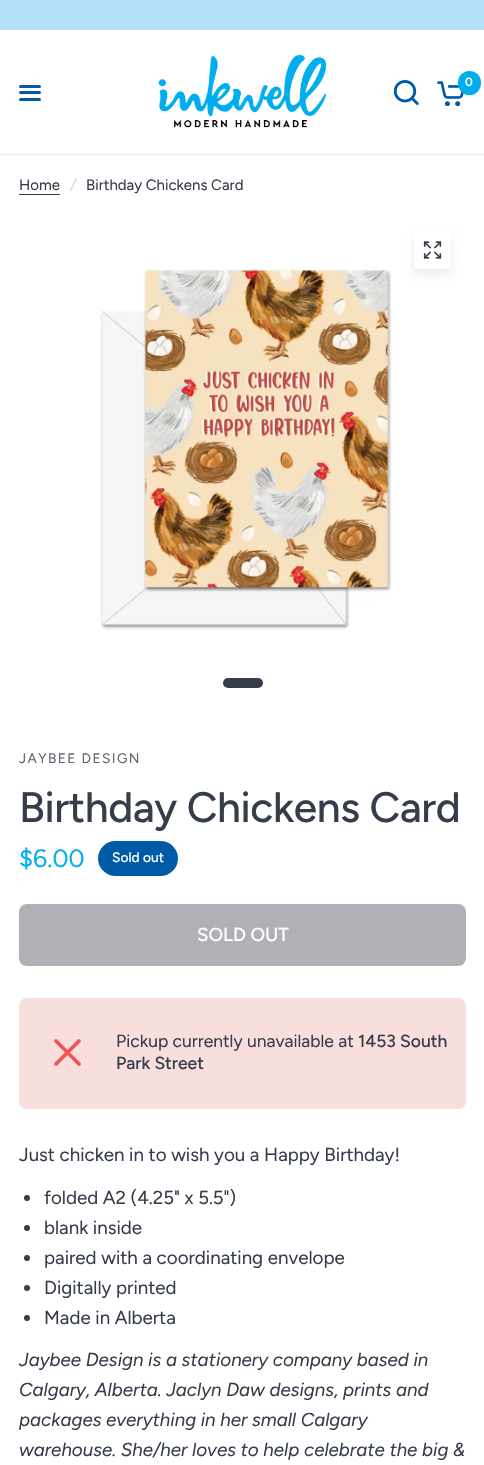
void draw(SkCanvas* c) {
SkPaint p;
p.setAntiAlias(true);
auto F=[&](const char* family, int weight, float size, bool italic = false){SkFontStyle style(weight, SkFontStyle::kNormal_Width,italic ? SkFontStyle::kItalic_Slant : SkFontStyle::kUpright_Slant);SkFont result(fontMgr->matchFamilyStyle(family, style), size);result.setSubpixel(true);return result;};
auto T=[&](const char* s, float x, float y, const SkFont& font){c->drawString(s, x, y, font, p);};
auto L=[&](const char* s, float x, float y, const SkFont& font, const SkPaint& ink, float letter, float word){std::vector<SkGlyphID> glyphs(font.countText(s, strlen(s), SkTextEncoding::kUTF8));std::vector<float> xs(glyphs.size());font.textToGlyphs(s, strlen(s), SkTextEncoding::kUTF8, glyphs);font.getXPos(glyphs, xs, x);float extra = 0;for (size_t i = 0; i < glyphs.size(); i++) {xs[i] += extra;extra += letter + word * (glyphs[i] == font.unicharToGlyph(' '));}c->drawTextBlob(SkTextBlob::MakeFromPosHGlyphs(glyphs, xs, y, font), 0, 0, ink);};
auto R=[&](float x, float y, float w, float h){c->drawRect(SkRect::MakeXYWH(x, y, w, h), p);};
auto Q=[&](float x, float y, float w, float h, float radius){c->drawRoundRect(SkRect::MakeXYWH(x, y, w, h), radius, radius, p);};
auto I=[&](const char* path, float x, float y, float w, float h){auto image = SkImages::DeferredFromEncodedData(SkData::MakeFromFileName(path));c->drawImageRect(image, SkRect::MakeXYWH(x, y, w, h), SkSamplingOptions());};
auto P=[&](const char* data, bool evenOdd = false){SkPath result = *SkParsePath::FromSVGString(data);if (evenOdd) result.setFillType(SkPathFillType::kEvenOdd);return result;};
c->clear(0xffffffff);
p.setColor(0xffb3e0f6);
R(0,0,484,30);
I("1.png",158,55,169,73);
I("2.png",394,80,25,25);
I("3.png",437,81,27,25);
p.setColor(0xff00aeef);
Q(458,71,23,24,11.5);
auto f1 = F("Figtree",600,12);
p.setColor(0xffffffff);
T("0",465,86,f1);
p.setColor(0xff005ba6);
Q(19,85,22,3,1.5);
Q(19,91,22,3,1.5);
Q(19,98,22,3,1.5);
p.setColor(0xffebebed);
R(0,154,484,1);
auto f2 = F("Figtree",400,15);
p.setColor(0xff363d4a);
T("Home",19,190,f2);
R(19,194,41,1);
auto f3 = F("Figtree",400,15,true);
p.setColor(0xffd7d8db);
T("/",70,190,f3);
p.setColor(0xff363d4a);
T("Birthday Chickens Card",86,190,f2);
p.setColor(0x14000000);
p.setMaskFilter(SkMaskFilter::MakeBlur(kNormal_SkBlurStyle, 4));
c->drawRoundRect(SkRect::MakeXYWH(414,236,37,38),4,4,p);
p.setMaskFilter(nullptr);
p.setColor(0xffffffff);
Q(414,231,37,38,4);
I("4.png",423,241,19,18);
I("5.png",100,269,292,361);
p.setColor(0xff363d4a);
Q(223,678,40,10,5);
auto f4 = F("Figtree",400,13.75);
p.setColor(0xff5e646e);
L("JAYBEE DESIGN",19,763,f4,p,1.4,0);
auto f5 = F("Figtree",500,42.5);
p.setColor(0xff363d4a);
L("Birthday Chickens Card",19,822,f5,p,-.4,0);
auto f6 = F("Figtree",400,25);
p.setColor(0xff00aeef);
T("$6.00",19,867,f6);
p.setColor(0xff005ba6);
Q(98,841,80,35,17.5);
auto f7 = F("Figtree",500,13.75);
p.setColor(0xffffffff);
T("Sold out",112,862,f7);
p.setColor(0xffafb1b7);
Q(19,904,447,62,8);
auto f8 = F("Figtree",500,18.75);
p.setColor(0xffffffff);
T("SOLD OUT",197,941,f8);
p.setColor(0xfff9dede);
Q(19,998,447,111,8);
p.setStroke(true);
p.setStrokeWidth(3.8);
p.setStrokeCap(SkPaint::kRound_Cap);
p.setStrokeJoin(SkPaint::kRound_Join);
p.setColor(0xfff25555);
c->drawPath(P("M79 1041l-23 23m23 0l-23-23"),p);
auto f9 = F("Figtree",400,17.5);
p.setStroke(false);
p.setColor(0xff363d4a);
T("Pickup currently unavailable at",116,1047,f9);
auto f10 = F("Figtree",500,17.5);
T("1453 South",358,1047,f10);
T("Park Street",116,1069,f10);
auto f11 = F("Figtree",400,18.75);
T("Just chicken in to wish you a Happy Birthday!",19,1161,f11);
c->drawCircle(27,1198,3,p);
T("folded A2 (4.25\" x 5.5\")",44,1204,f11);
c->drawCircle(27,1228,3,p);
T("blank inside",44,1234,f11);
c->drawCircle(27,1258,3,p);
T("paired with a coordinating envelope",44,1264,f11);
c->drawCircle(27,1288,3,p);
T("Digitally printed",44,1294,f11);
c->drawCircle(27,1318,3,p);
T("Made in Alberta",44,1324,f11);
auto f12 = F("Figtree",400,18.75,true);
T("Jaybee Design is a stationery company based in",19,1366,f12);
T("Calgary, Alberta. Jaclyn Daw designs, prints and",19,1396,f12);
T("packages everything in her small Calgary",19,1426,f12);
T("warehouse. She/her loves to help celebrate the big &",19,1456,f12);
}
